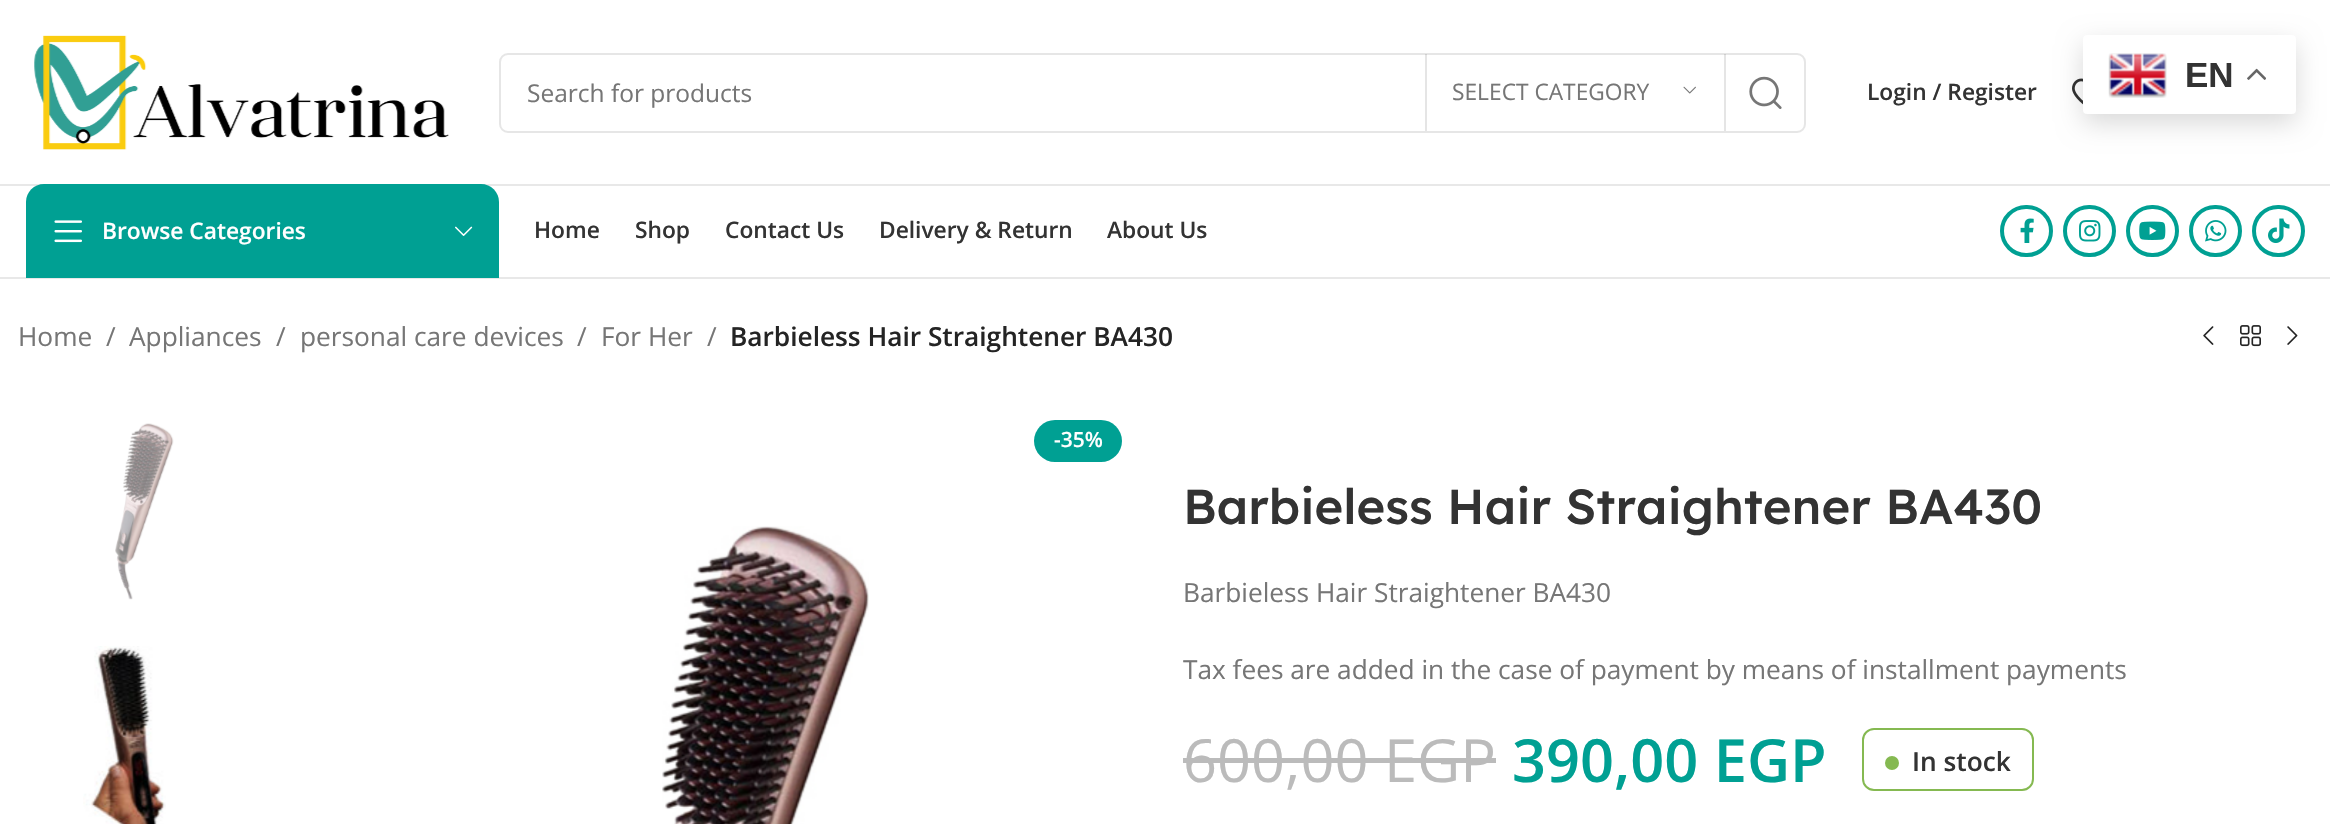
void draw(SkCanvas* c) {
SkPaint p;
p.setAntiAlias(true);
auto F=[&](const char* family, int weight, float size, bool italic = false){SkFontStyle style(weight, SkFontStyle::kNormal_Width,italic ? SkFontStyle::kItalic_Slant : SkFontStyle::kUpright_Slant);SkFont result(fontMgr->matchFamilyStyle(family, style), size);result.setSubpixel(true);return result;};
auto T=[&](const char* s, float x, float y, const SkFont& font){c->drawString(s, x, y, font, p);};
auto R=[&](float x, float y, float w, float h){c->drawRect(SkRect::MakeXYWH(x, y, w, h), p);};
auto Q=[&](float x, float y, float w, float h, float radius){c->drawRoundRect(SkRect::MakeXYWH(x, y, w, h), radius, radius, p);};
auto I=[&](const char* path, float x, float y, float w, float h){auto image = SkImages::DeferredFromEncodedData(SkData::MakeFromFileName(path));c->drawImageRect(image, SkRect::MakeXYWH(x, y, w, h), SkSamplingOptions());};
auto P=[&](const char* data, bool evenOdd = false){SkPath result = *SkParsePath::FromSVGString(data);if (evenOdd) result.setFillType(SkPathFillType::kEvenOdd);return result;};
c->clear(0xffffffff);
I("6.png",2072,78,11,27);
p.setColor(0x26000000);
p.setMaskFilter(SkMaskFilter::MakeBlur(kNormal_SkBlurStyle, 13));
c->drawRoundRect(SkRect::MakeXYWH(2083,44,213,79),4,4,p);
p.setMaskFilter(nullptr);
p.setColor(0xffffffff);
Q(2083,35,213,79,4);
I("1.png",2108,53,59,45);
auto f1 = F("Liberation Sans",700,35);
p.setColor(0xff333333);
T("EN",2185,87,f1);
I("2.png",2247,68,19,12);
p.setColor(0xffe8e8e8);
R(0,184,2330,2);
I("3.png",34,35,415,115);
p.setStroke(true);
p.setStrokeWidth(2);
p.setColor(0xffe6e6e6);
c->drawRoundRect(SkRect::MakeXYWH(500,54,1305,78),8,8,p);
auto f2 = F("Open Sans",400,24.5);
p.setStroke(false);
p.setColor(0xff767676);
T("Search for products",527,102,f2);
p.setColor(0x1a000000);
R(1724,54,2,77);
R(1425,54,2,77);
auto f3 = F("Open Sans",400,22.75);
p.setColor(0xff767676);
T("SELECT CATEGORY",1452,100,f3);
I("4.png",1683,86,13,8);
I("5.png",1749,76,33,33);
auto f4 = F("Open Sans",600,22.75);
p.setColor(0xff333333);
T("Login / Register",1867,100,f4);
p.setColor(0xffe8e8e8);
R(0,277,2330,2);
p.setColor(0xff00a093);
c->drawPath(P("M44 184h437c10 0 18 8 18 18v76h-473v-76c0-10 8-18 18-18z"),p);
I("7.png",54,220,28,23);
p.setColor(0xffffffff);
T("Browse Categories",102,239,f4);
I("8.png",455,226,18,10);
p.setColor(0xff333333);
T("Home",534,238,f4);
T("Shop",635,238,f4);
T("Contact Us",725,238,f4);
T("Delivery & Return",879,238,f4);
T("About Us",1107,238,f4);
p.setStroke(true);
p.setStrokeWidth(4);
p.setColor(0xff00a093);
c->drawRoundRect(SkRect::MakeXYWH(2002,207,49,48),24,24,p);
I("9.png",2020,218,14,25);
c->drawRoundRect(SkRect::MakeXYWH(2065,207,49,48),24,24,p);
I("10.png",2079,220,22,22);
c->drawRoundRect(SkRect::MakeXYWH(2128,207,49,48),24,24,p);
I("11.png",2139,221,27,19);
c->drawRoundRect(SkRect::MakeXYWH(2191,207,49,48),24,24,p);
I("12.png",2205,220,22,22);
c->drawRoundRect(SkRect::MakeXYWH(2254,207,49,48),24,24,p);
I("13.png",2268,218,22,25);
auto f5 = F("Open Sans",400,26.25);
p.setStroke(false);
p.setColor(0xff767676);
T("Home",18,346,f5);
T("/",106,346,f5);
T("Appliances",129,346,f5);
T("/",276,346,f5);
T("personal care devices",300,346,f5);
T("/",577,346,f5);
T("For Her",601,346,f5);
T("/",707,346,f5);
auto f6 = F("Open Sans",600,26.25);
p.setColor(0xff242424);
T("Barbieless Hair Straightener BA430",730,346,f6);
I("14.png",2203,326,11,19);
I("15.png",2240,325,21,22);
I("16.png",2287,326,11,19);
I("17.png",115,423,59,177);
I("18.png",83,646,83,178);
p.setColor(0xff00a093);
Q(1034,420,88,42,21);
auto f7 = F("Open Sans",600,21);
p.setColor(0xffffffff);
T("-35%",1054,447,f7);
I("19.png",662,526,207,298);
auto f8 = F("Lexend Deca",500,49);
p.setColor(0xff333333);
T("Barbieless Hair Straightener BA430",1183,524,f8);
p.setColor(0xff767676);
T("Barbieless Hair Straightener BA430",1183,602,f5);
T("Tax fees are added in the case of payment by means of installment payments",1183,679,f5);
auto f9 = F("Open Sans",400,59.5);
p.setColor(0xffbbbbbb);
T("600,00 EGP",1183,782,f9);
R(1183,758,313,5);
auto f10 = F("Open Sans",600,59.5);
p.setColor(0xff00a093);
T("390,00 EGP",1512,782,f10);
p.setStroke(true);
p.setStrokeWidth(2);
p.setColor(0xff85b951);
c->drawRoundRect(SkRect::MakeXYWH(1863,729,170,61),11,11,p);
p.setStroke(false);
c->drawCircle(1892,763,7,p);
p.setColor(0xff333333);
T("In stock",1912,771,f6);
}
